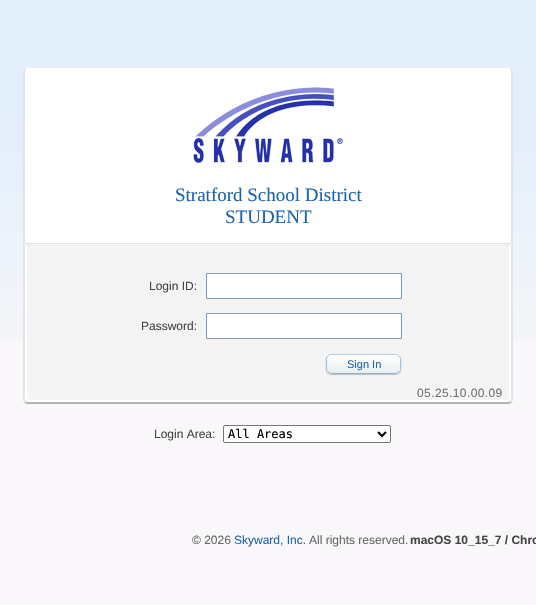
void draw(SkCanvas* c) {
SkPaint p;
p.setAntiAlias(true);
auto F=[&](const char* family, int weight, float size, bool italic = false){SkFontStyle style(weight, SkFontStyle::kNormal_Width,italic ? SkFontStyle::kItalic_Slant : SkFontStyle::kUpright_Slant);SkFont result(fontMgr->matchFamilyStyle(family, style), size);result.setSubpixel(true);return result;};
auto T=[&](const char* s, float x, float y, const SkFont& font){c->drawString(s, x, y, font, p);};
auto L=[&](const char* s, float x, float y, const SkFont& font, const SkPaint& ink, float letter, float word){std::vector<SkGlyphID> glyphs(font.countText(s, strlen(s), SkTextEncoding::kUTF8));std::vector<float> xs(glyphs.size());font.textToGlyphs(s, strlen(s), SkTextEncoding::kUTF8, glyphs);font.getXPos(glyphs, xs, x);float extra = 0;for (size_t i = 0; i < glyphs.size(); i++) {xs[i] += extra;extra += letter + word * (glyphs[i] == font.unicharToGlyph(' '));}c->drawTextBlob(SkTextBlob::MakeFromPosHGlyphs(glyphs, xs, y, font), 0, 0, ink);};
auto R=[&](float x, float y, float w, float h){c->drawRect(SkRect::MakeXYWH(x, y, w, h), p);};
auto I=[&](const char* path, float x, float y, float w, float h){auto image = SkImages::DeferredFromEncodedData(SkData::MakeFromFileName(path));c->drawImageRect(image, SkRect::MakeXYWH(x, y, w, h), SkSamplingOptions());};
auto P=[&](const char* data, bool evenOdd = false){SkPath result = *SkParsePath::FromSVGString(data);if (evenOdd) result.setFillType(SkPathFillType::kEvenOdd);return result;};
c->clear(0xfff9f7f9);
I("1.png",0,0,536,340);
p.setStroke(true);
p.setStrokeWidth(1);
p.setColor(0xffeeeeee);
c->drawPath(P("M24.5 68.5l2.5-1h482l2.5 1"),p);
p.setColor(0xffe2e3e4);
c->drawPath(P("M511.5 68.5l1 2.5v329.5l-1 2"),p);
p.setColor(0xffb0b0b0);
c->drawPath(P("M511.5 402.5l-2.5 1h-482l-2.5-1"),p);
p.setColor(0xffe2e3e4);
c->drawPath(P("M24.5 402.5l-1-2v-110v-219.5l1-2.5"),p);
p.setStroke(false);
p.setColor(0xffffffff);
c->drawPath(P("M28 68h480c2 0 4 2 4 4v172h-488v-172c0-2 2-4 4-4z"),p);
c->drawPath(P("M28 68l-3 1l1 1l2-1h480l2 1l1-1l-3-1z"),p);
p.setColor(0xffe0e4e9);
c->drawPath(P("M512 244v-172l-1-3l-1 1l1 2v171z"),p);
p.setColor(0xffe2e2e2);
c->drawPath(P("M512 244l-1-1h-486l-1 1z"),p);
p.setColor(0xffe0e4e9);
c->drawPath(P("M24 244l1-1v-171l1-2l-1-1l-1 3z"),p);
I("2.png",193,87,150,76);
auto f1 = F("Liberation Serif",400,19);
p.setColor(0xff1b63aa);
T("Stratford School District",175,201,f1);
T("STUDENT",225,223,f1);
p.setColor(0xfff4f4f4);
c->drawPath(P("M24 244l1 1h486l1-1z"),p);
p.setColor(0xffe3e6e9);
c->drawPath(P("M512 244l-1 1v154l-1 2l1 1l1-3z"),p);
p.setColor(0xffb6b6b6);
c->drawPath(P("M28 403h480l3-1l-1-1l-2 1h-480l-2-1l-1 1z"),p);
p.setColor(0xffe3e6e9);
c->drawPath(P("M25 245l-1-1v155l1 3l1-1l-1-2z"),p);
p.setColor(0xfff4f4f4);
c->drawPath(P("M27 246h482v151c0 1.5-1.5 3-3 3h-476c-1.5 0-3-1.5-3-3z"),p);
p.setColor(0xfff1efed);
c->drawPath(P("M25 245l2 1h482l2-1z"),p);
p.setColor(0xffffffff);
c->drawPath(P("M511 245l-2 1v151l-1 2l2 2c0-1 1-3 1-4z"),p);
c->drawPath(P("M30 402h476c2 0 3 0 4-1l-2-2l-2 1h-476l-2-1l-2 2c1 1 2 1 4 1z"),p);
c->drawPath(P("M27 246l-2-1v153l1 3l2-2l-1-2z"),p);
auto f2 = F("Liberation Sans",400,12);
p.setColor(0xff444444);
T("Login ID:",149,290,f2);
p.setColor(0xffffffff);
c->drawRect(SkRect::MakeXYWH(206.5,273.5,195,25),p);
p.setStroke(true);
p.setColor(0xff7f9db9);
c->drawRect(SkRect::MakeXYWH(206.5,273.5,195,25),p);
p.setStroke(false);
p.setColor(0xff444444);
T("Password:",141,330,f2);
p.setColor(0xffffffff);
c->drawRect(SkRect::MakeXYWH(206.5,313.5,195,25),p);
p.setStroke(true);
p.setColor(0xff7f9db9);
c->drawRect(SkRect::MakeXYWH(206.5,313.5,195,25),p);
p.setStroke(false);
p.setColor(0xffc2c2c2);
p.setMaskFilter(SkMaskFilter::MakeBlur(kNormal_SkBlurStyle, .5));
c->drawRoundRect(SkRect::MakeXYWH(326,355,75,20),5,5,p);
p.setMaskFilter(nullptr);
c->save();
c->clipPath(P("M331 354h65c3 0 5 2 5 5v10c0 3-2 5-5 5h-65c-3 0-5-2-5-5v-10c0-3 2-5 5-5z"),true);
{
const SkColor colors[] = {0xffffffff,0xffe9edef};
const float stops[] = {0,1};
const SkPoint ends[] = {{364,337}, {364,355}};
p.setShader(SkGradientShader::MakeLinear(ends, colors, stops, 2, SkTileMode::kClamp));
p.setAlpha(255);
}
R(326,354,75,1);
{
const SkColor colors[] = {0xffffffff,0xffe9edef};
const float stops[] = {0,1};
const SkPoint ends[] = {{364,355}, {364,373}};
p.setShader(SkGradientShader::MakeLinear(ends, colors, stops, 2, SkTileMode::kClamp));
p.setAlpha(255);
}
R(326,355,75,18);
{
const SkColor colors[] = {0xffffffff,0xffe9edef};
const float stops[] = {0,1};
const SkPoint ends[] = {{364,373}, {364,391}};
p.setShader(SkGradientShader::MakeLinear(ends, colors, stops, 2, SkTileMode::kClamp));
p.setAlpha(255);
}
R(326,373,75,1);
c->restore();
p.setStroke(true);
p.setShader(nullptr);
p.setColor(0xffaecdeb);
c->drawPath(P("M328 356l2.5-1.5h66l2.5 1.5"),p);
p.setColor(0xff82baf1);
c->drawPath(P("M399 356c2.5 2 1.5 5.5 1.5 8c0 2.5 1 6-1.5 8"),p);
p.setColor(0xff90aeca);
c->drawPath(P("M399 372l-2.5 1.5h-66l-2.5-1.5"),p);
p.setColor(0xff82baf1);
c->drawPath(P("M328 372c-2.5-2-1.5-5.5-1.5-8c0-2.5-1-6 1.5-8"),p);
auto f3 = F("Liberation Sans",400,11);
p.setStroke(false);
p.setColor(0xff1b63aa);
T("Sign In",347,368,f3);
p.setColor(0xff707070);
L("05.25.10.00.09",417,397,f2,p,.4,0);
p.setColor(0xff444444);
T("Login Area:",154,438,f2);
p.setColor(0xffffffff);
c->drawRoundRect(SkRect::MakeXYWH(223.5,425.5,167,17),1.5,1.5,p);
p.setStroke(true);
p.setColor(0xff767676);
c->drawRoundRect(SkRect::MakeXYWH(223.5,425.5,167,17),1.5,1.5,p);
p.setStrokeWidth(2);
p.setColor(0xff000000);
c->drawPath(P("M378 432l4 4l4-4"),p);
auto f4 = F("DejaVu Sans Mono",400,12);
p.setStroke(false);
T("All Areas",228,438,f4);
p.setColor(0xff666666);
T("© 2026",192,544,f2);
p.setColor(0xff1b63aa);
T("Skyward, Inc.",234,544,f2);
p.setColor(0xff666666);
T("All rights reserved.",309,544,f2);
auto f5 = F("Liberation Sans",700,12);
p.setColor(0xff444444);
T("macOS 10_15_7 / Chro",410,544,f5);
}
